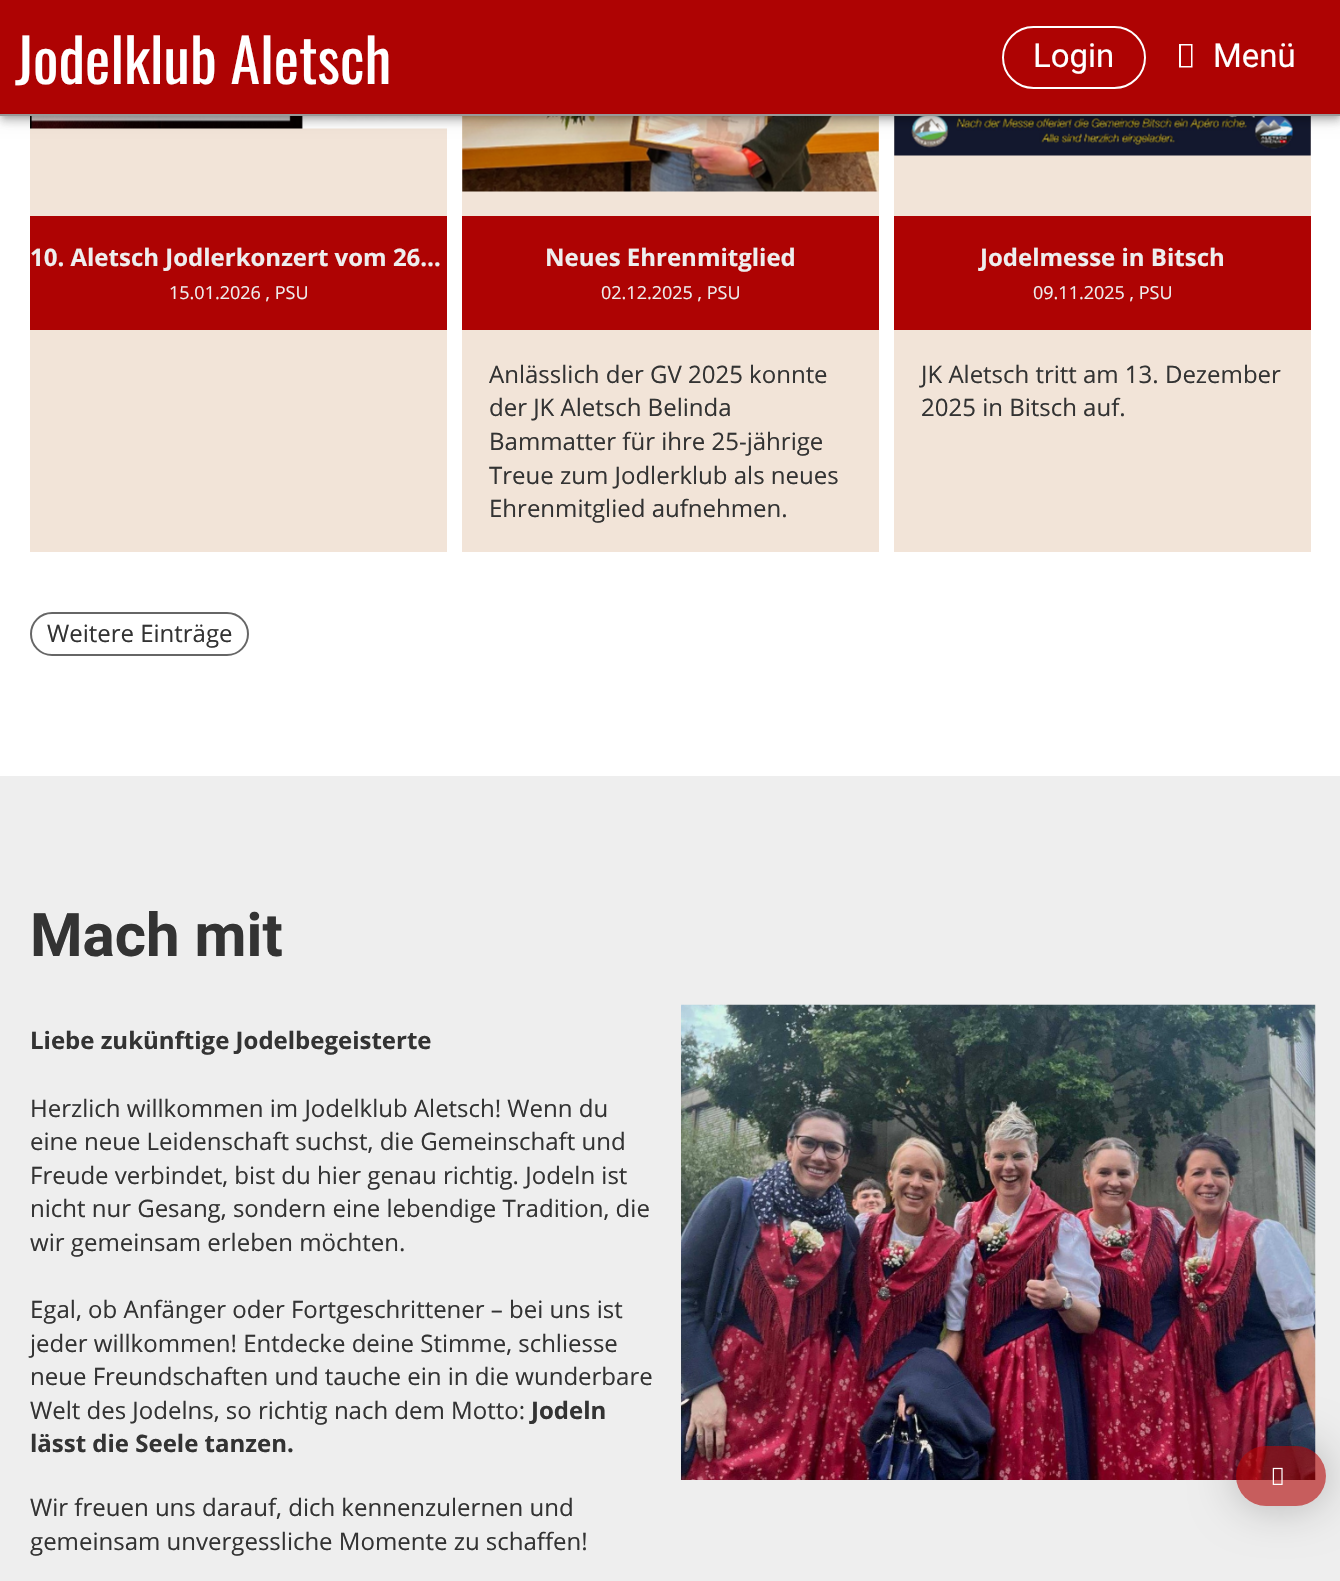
void draw(SkCanvas* c) {
SkPaint p;
p.setAntiAlias(true);
auto F=[&](const char* family, int weight, float size, bool italic = false){SkFontStyle style(weight, SkFontStyle::kNormal_Width,italic ? SkFontStyle::kItalic_Slant : SkFontStyle::kUpright_Slant);SkFont result(fontMgr->matchFamilyStyle(family, style), size);result.setSubpixel(true);return result;};
auto T=[&](const char* s, float x, float y, const SkFont& font){c->drawString(s, x, y, font, p);};
auto R=[&](float x, float y, float w, float h){c->drawRect(SkRect::MakeXYWH(x, y, w, h), p);};
auto Q=[&](float x, float y, float w, float h, float radius){c->drawRoundRect(SkRect::MakeXYWH(x, y, w, h), radius, radius, p);};
auto I=[&](const char* path, float x, float y, float w, float h){auto image = SkImages::DeferredFromEncodedData(SkData::MakeFromFileName(path));c->drawImageRect(image, SkRect::MakeXYWH(x, y, w, h), SkSamplingOptions());};
auto P=[&](const char* data, bool evenOdd = false){SkPath result = *SkParsePath::FromSVGString(data);if (evenOdd) result.setFillType(SkPathFillType::kEvenOdd);return result;};
c->clear(0xffffffff);
p.setColor(0xfff2e4d8);
R(30,128,417,424);
I("1.png",30,116,417,13);
R(462,116,417,436);
I("2.png",462,116,417,76);
R(894,116,417,436);
I("3.png",894,116,417,40);
p.setColor(0x1f000000);
p.setMaskFilter(SkMaskFilter::MakeBlur(kNormal_SkBlurStyle, 7.5));
c->drawRect(SkRect::MakeXYWH(0,2,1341,115),p);
p.setMaskFilter(nullptr);
p.setColor(0x24000000);
p.setMaskFilter(SkMaskFilter::MakeBlur(kNormal_SkBlurStyle, 4));
c->drawRect(SkRect::MakeXYWH(0,6,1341,116),p);
p.setMaskFilter(nullptr);
p.setColor(0x33000000);
p.setMaskFilter(SkMaskFilter::MakeBlur(kNormal_SkBlurStyle, 3));
c->drawRect(SkRect::MakeXYWH(2,5,1338,112),p);
p.setMaskFilter(nullptr);
p.setColor(0xffae0303);
R(0,0,1340,114);
p.setColor(0xff999999);
R(0,114,1340,2);
auto f1 = F("Oswald",400,60);
p.setColor(0xffffffff);
T("Jodelklub Aletsch",15,84,f1);
p.setStroke(true);
p.setStrokeWidth(2);
c->drawRoundRect(SkRect::MakeXYWH(1003,27,142,61),30.5,30.5,p);
auto f2 = F("Roboto",400,33);
p.setStroke(false);
T("Login",1033,67,f2);
c->drawPath(P("M1179 67.5v-23.5h13.5v23.5zm2-1.5h10v-20.5h-10z"),p);
T("Menü",1213,67,f2);
p.setColor(0xffae0303);
R(30,216,417,114);
auto f3 = F("Open Sans",700,24);
p.setColor(0xffeeeeee);
T("10. Aletsch Jodlerkonzert vom 26…",30,266,f3);
auto f4 = F("Open Sans",400,18);
T("15.01.2026 , PSU",169,299,f4);
p.setColor(0xffae0303);
R(462,216,417,114);
p.setColor(0xffeeeeee);
T("Neues Ehrenmitglied",545,266,f3);
T("02.12.2025 , PSU",601,299,f4);
auto f5 = F("Open Sans",400,24);
p.setColor(0xff333333);
T("Anlässlich der GV 2025 konnte",489,383,f5);
T("der JK Aletsch Belinda",489,416,f5);
T("Bammatter für ihre 25-jährige",489,450,f5);
T("Treue zum Jodlerklub als neues",489,484,f5);
T("Ehrenmitglied aufnehmen.",489,517,f5);
p.setColor(0xffae0303);
R(894,216,417,114);
p.setColor(0xffeeeeee);
T("Jodelmesse in Bitsch",980,266,f3);
T("09.11.2025 , PSU",1033,299,f4);
p.setColor(0xff333333);
T("JK Aletsch tritt am 13. Dezember",921,383,f5);
T("2025 in Bitsch auf.",921,416,f5);
p.setStroke(true);
p.setColor(0xff666666);
c->drawRoundRect(SkRect::MakeXYWH(31,613,217,42),21,21,p);
p.setStroke(false);
p.setColor(0xff333333);
T("Weitere Einträge",47,642,f5);
p.setColor(0xffeeeeee);
R(0,776,1340,805);
auto f6 = F("Roboto",700,60);
p.setColor(0xff333333);
T("Mach mit",30,956,f6);
T("Liebe zukünftige Jodelbegeisterte",30,1049,f3);
T("Herzlich willkommen im Jodelklub Aletsch! Wenn du",30,1117,f5);
T("eine neue Leidenschaft suchst, die Gemeinschaft und",30,1150,f5);
T("Freude verbindet, bist du hier genau richtig. Jodeln ist",30,1184,f5);
T("nicht nur Gesang, sondern eine lebendige Tradition, die",30,1217,f5);
T("wir gemeinsam erleben möchten.",30,1251,f5);
T("Egal, ob Anfänger oder Fortgeschrittener – bei uns ist",30,1318,f5);
T("jeder willkommen! Entdecke deine Stimme, schliesse",30,1352,f5);
T("neue Freundschaften und tauche ein in die wunderbare",30,1385,f5);
T("Welt des Jodelns, so richtig nach dem Motto:",30,1419,f5);
T("Jodeln",531,1419,f3);
T("lässt die Seele tanzen.",30,1452,f3);
T("Wir freuen uns darauf, dich kennenzulernen und",30,1516,f5);
T("gemeinsam unvergessliche Momente zu schaffen!",30,1550,f5);
I("4.png",681,1004,635,476);
c->save();
c->clipPath(P("M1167 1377h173v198h-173zm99 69h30c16.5 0 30 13.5 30 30c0 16.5-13.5 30-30 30h-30c-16.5 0-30-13.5-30-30c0-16.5 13.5-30 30-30z",true),true);
p.setColor(0x40000000);
p.setMaskFilter(SkMaskFilter::MakeBlur(kNormal_SkBlurStyle, 22.5));
c->drawRoundRect(SkRect::MakeXYWH(1236,1446,90,60),30,30,p);
p.setMaskFilter(nullptr);
c->restore();
p.setColor(0x9eae0303);
Q(1236,1446,90,60,30);
I("5.png",1272,1467,11,18);
}
